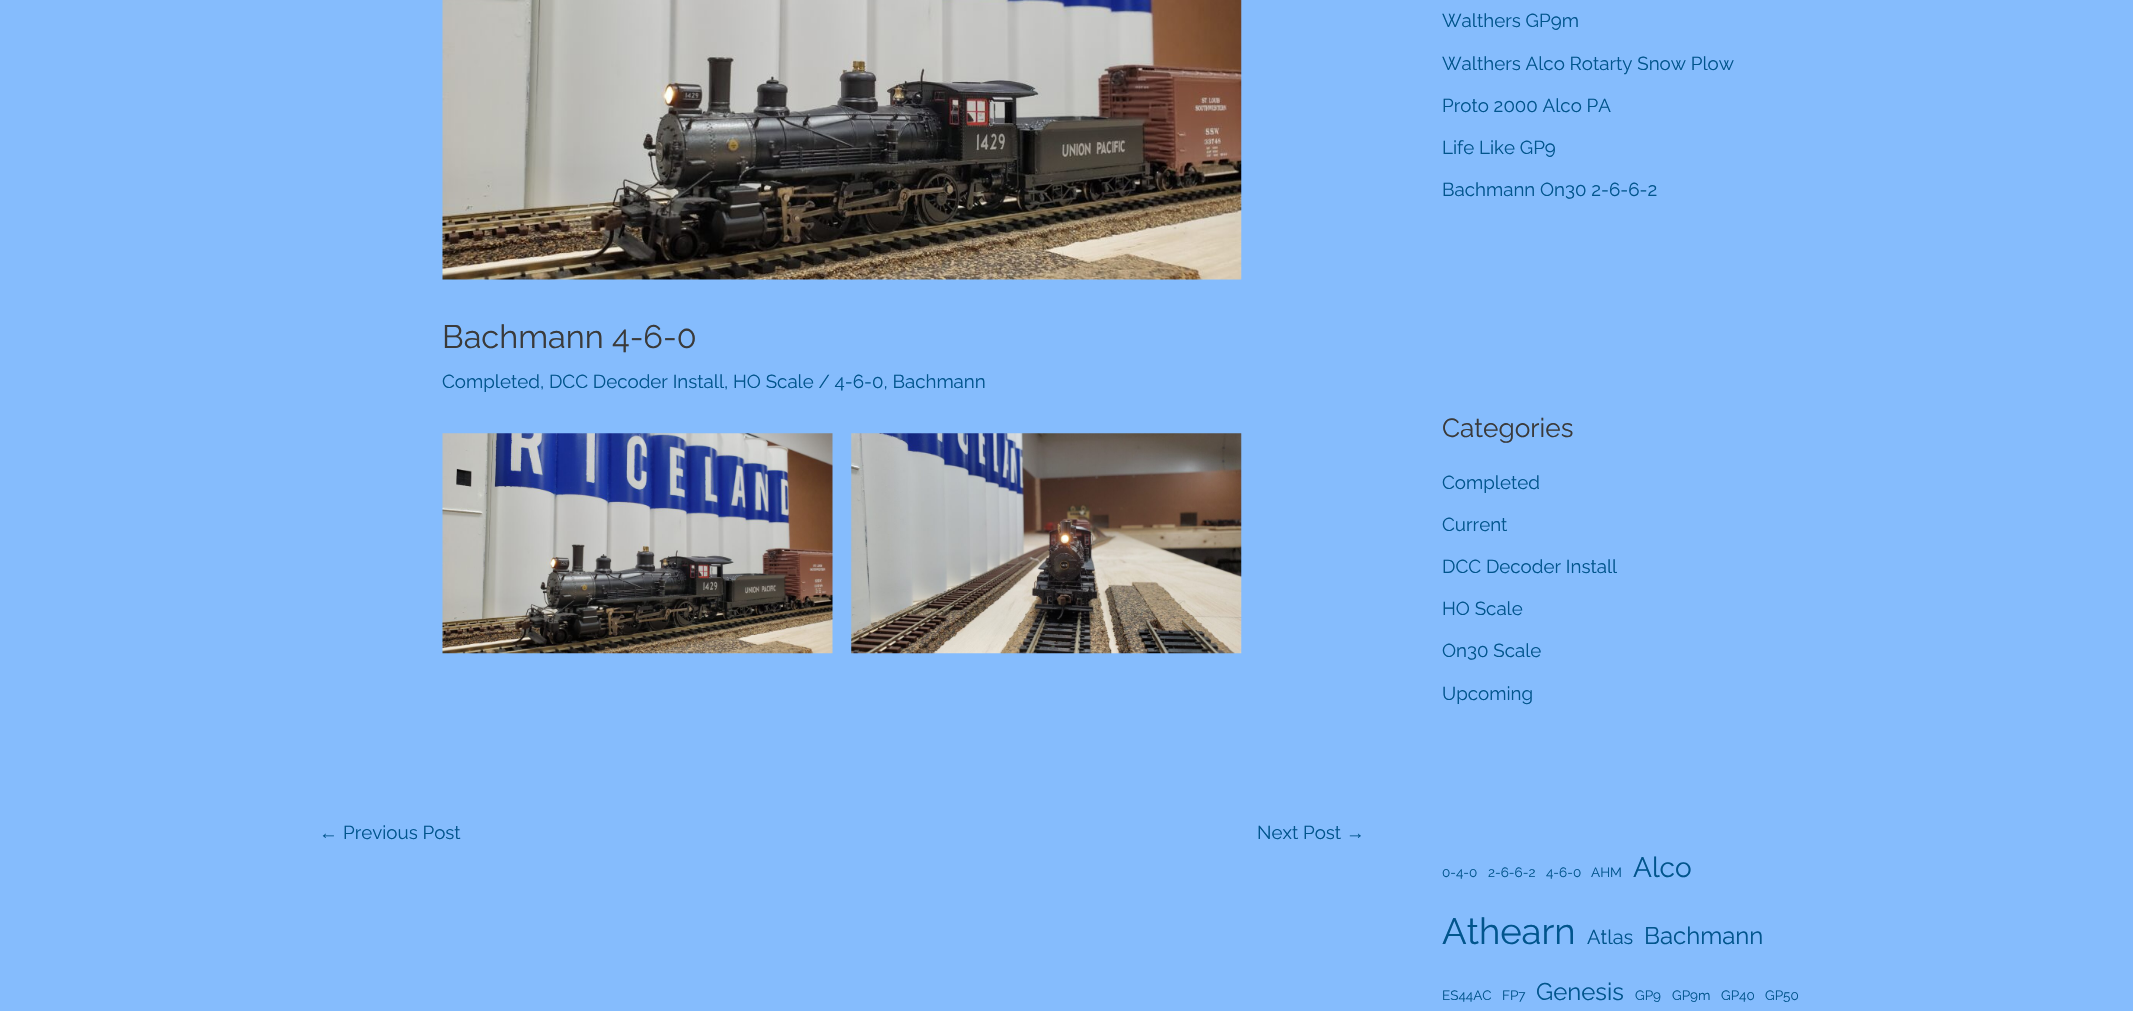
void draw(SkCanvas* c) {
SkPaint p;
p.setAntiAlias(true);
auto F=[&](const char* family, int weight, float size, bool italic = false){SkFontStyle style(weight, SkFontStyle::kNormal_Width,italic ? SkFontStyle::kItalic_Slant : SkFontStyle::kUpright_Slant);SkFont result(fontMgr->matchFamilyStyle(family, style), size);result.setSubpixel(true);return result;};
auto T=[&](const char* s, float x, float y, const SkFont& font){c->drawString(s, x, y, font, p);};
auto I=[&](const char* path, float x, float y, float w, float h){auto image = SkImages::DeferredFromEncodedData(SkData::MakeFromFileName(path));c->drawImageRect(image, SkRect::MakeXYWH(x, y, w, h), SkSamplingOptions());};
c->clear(0xff85bcfd);
I("1.png",442,0,800,280);
auto f1 = F("Raleway",100,32.5);
p.setColor(0xff3a3a3a);
T("Bachmann 4-6-0",442,348,f1);
auto f2 = F("Raleway",100,18.75);
p.setColor(0xff01558d);
T("Completed, DCC Decoder Install, HO Scale / 4-6-0, Bachmann",442,388,f2);
I("2.png",442,433,391,221);
I("3.png",851,433,391,221);
auto f3 = F("Liberation Sans",400,18.75);
T("←",319,839,f3);
T("Previous Post",343,839,f2);
T("Next Post",1257,839,f2);
T("→",1346,839,f3);
T("Walthers GP9m",1442,27,f2);
T("Walthers Alco Rotarty Snow Plow",1442,70,f2);
T("Proto 2000 Alco PA",1442,112,f2);
T("Life Like GP9",1442,154,f2);
T("Bachmann On30 2-6-6-2",1442,196,f2);
auto f4 = F("Raleway",100,26.25);
p.setColor(0xff3a3a3a);
T("Categories",1442,437,f4);
p.setColor(0xff01558d);
T("Completed",1442,489,f2);
T("Current",1442,531,f2);
T("DCC Decoder Install",1442,573,f2);
T("HO Scale",1442,615,f2);
T("On30 Scale",1442,657,f2);
T("Upcoming",1442,700,f2);
auto f5 = F("Raleway",100,13.5);
T("0-4-0",1442,877,f5);
T("2-6-6-2",1488,877,f5);
T("4-6-0",1546,877,f5);
T("AHM",1591,877,f5);
auto f6 = F("Raleway",100,28);
T("Alco",1633,877,f6);
auto f7 = F("Raleway",100,36.5);
T("Athearn",1442,944,f7);
auto f8 = F("Raleway",100,20);
T("Atlas",1587,944,f8);
auto f9 = F("Raleway",100,24);
T("Bachmann",1644,944,f9);
T("ES44AC",1442,1000,f5);
T("FP7",1502,1000,f5);
T("Genesis",1536,1000,f9);
T("GP9",1635,1000,f5);
T("GP9m",1672,1000,f5);
T("GP40",1721,1000,f5);
T("GP50",1765,1000,f5);
}
